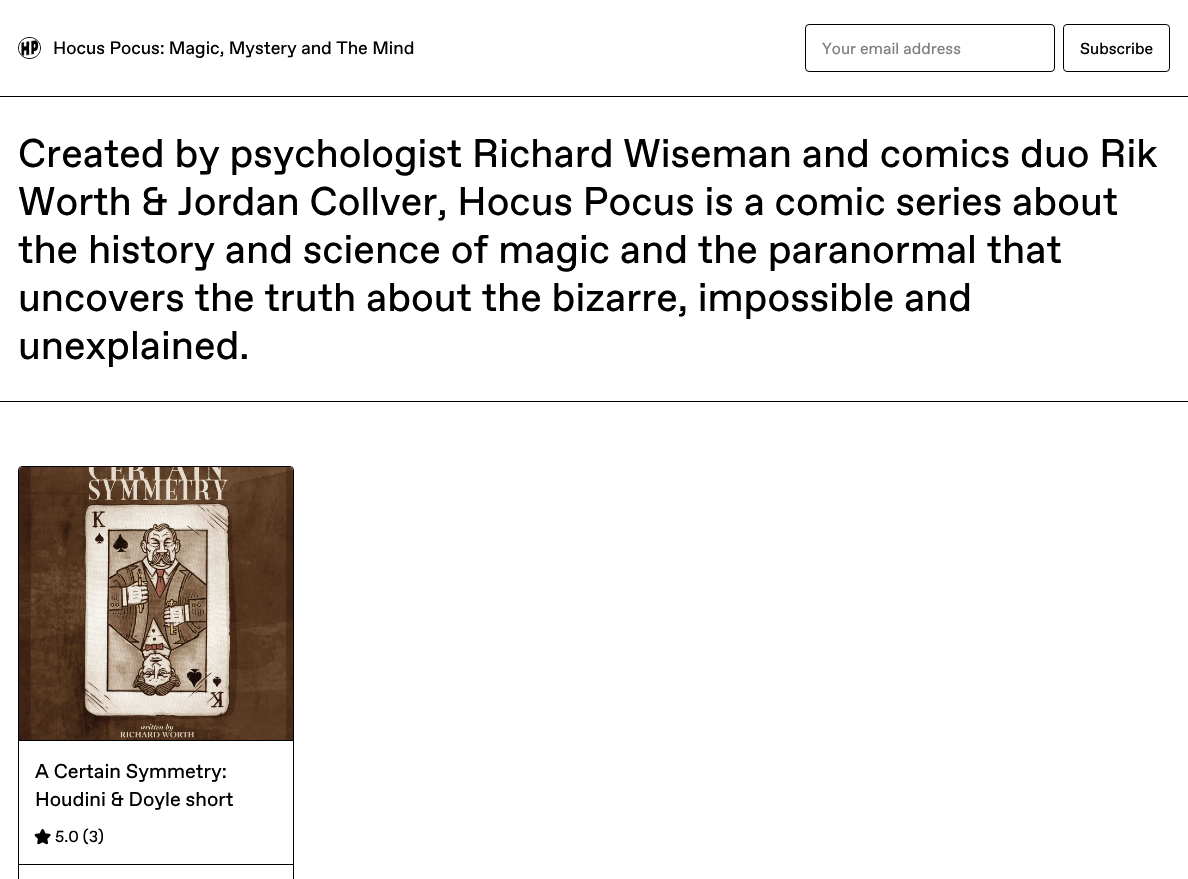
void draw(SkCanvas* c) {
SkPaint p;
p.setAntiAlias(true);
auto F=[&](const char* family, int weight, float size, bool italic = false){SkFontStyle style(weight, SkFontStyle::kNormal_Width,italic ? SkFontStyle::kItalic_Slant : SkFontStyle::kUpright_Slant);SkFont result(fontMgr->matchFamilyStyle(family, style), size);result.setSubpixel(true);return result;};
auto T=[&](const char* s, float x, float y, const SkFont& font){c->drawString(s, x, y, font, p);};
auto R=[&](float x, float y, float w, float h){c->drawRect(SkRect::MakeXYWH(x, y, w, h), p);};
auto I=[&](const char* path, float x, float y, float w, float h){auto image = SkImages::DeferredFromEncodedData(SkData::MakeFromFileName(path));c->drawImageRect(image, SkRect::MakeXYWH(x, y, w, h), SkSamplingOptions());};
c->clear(0xffffffff);
p.setColor(0xff000000);
R(0,96,1188,1);
p.setStroke(true);
p.setStrokeWidth(1);
c->drawRoundRect(SkRect::MakeXYWH(18.5,37.5,22,21),10.5,10.5,p);
I("1.png",19,38,21,20);
auto f1 = F("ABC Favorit",400,18);
p.setStroke(false);
T("Hocus Pocus: Magic, Mystery and The Mind",53,54,f1);
p.setStroke(true);
c->drawRoundRect(SkRect::MakeXYWH(805.5,24.5,249,47),3.5,3.5,p);
auto f2 = F("ABC Favorit",400,16);
p.setStroke(false);
p.setColor(0xff808080);
T("Your email address",822,54,f2);
p.setStroke(true);
p.setColor(0xff000000);
c->drawRoundRect(SkRect::MakeXYWH(1063.5,24.5,106,47),3.5,3.5,p);
p.setStroke(false);
T("Subscribe",1080,54,f2);
R(0,401,1188,1);
auto f3 = F("ABC Favorit",400,40);
T("Created by psychologist Richard Wiseman and comics duo Rik",18,167,f3);
T("Worth & Jordan Collver, Hocus Pocus is a comic series about",18,215,f3);
T("the history and science of magic and the paranormal that",18,263,f3);
T("uncovers the truth about the bizarre, impossible and",18,311,f3);
T("unexplained.",18,359,f3);
p.setStroke(true);
c->drawRoundRect(SkRect::MakeXYWH(18.5,466.5,275,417),3.5,3.5,p);
p.setStroke(false);
R(19,740,274,1);
I("2.png",19,467,274,273);
R(19,864,274,1);
auto f4 = F("ABC Favorit",400,20);
T("A Certain Symmetry:",35,778,f4);
T("Houdini & Doyle short",35,806,f4);
I("3.png",34,829,17,16);
T("5.0 (3)",55,842,f2);
}
